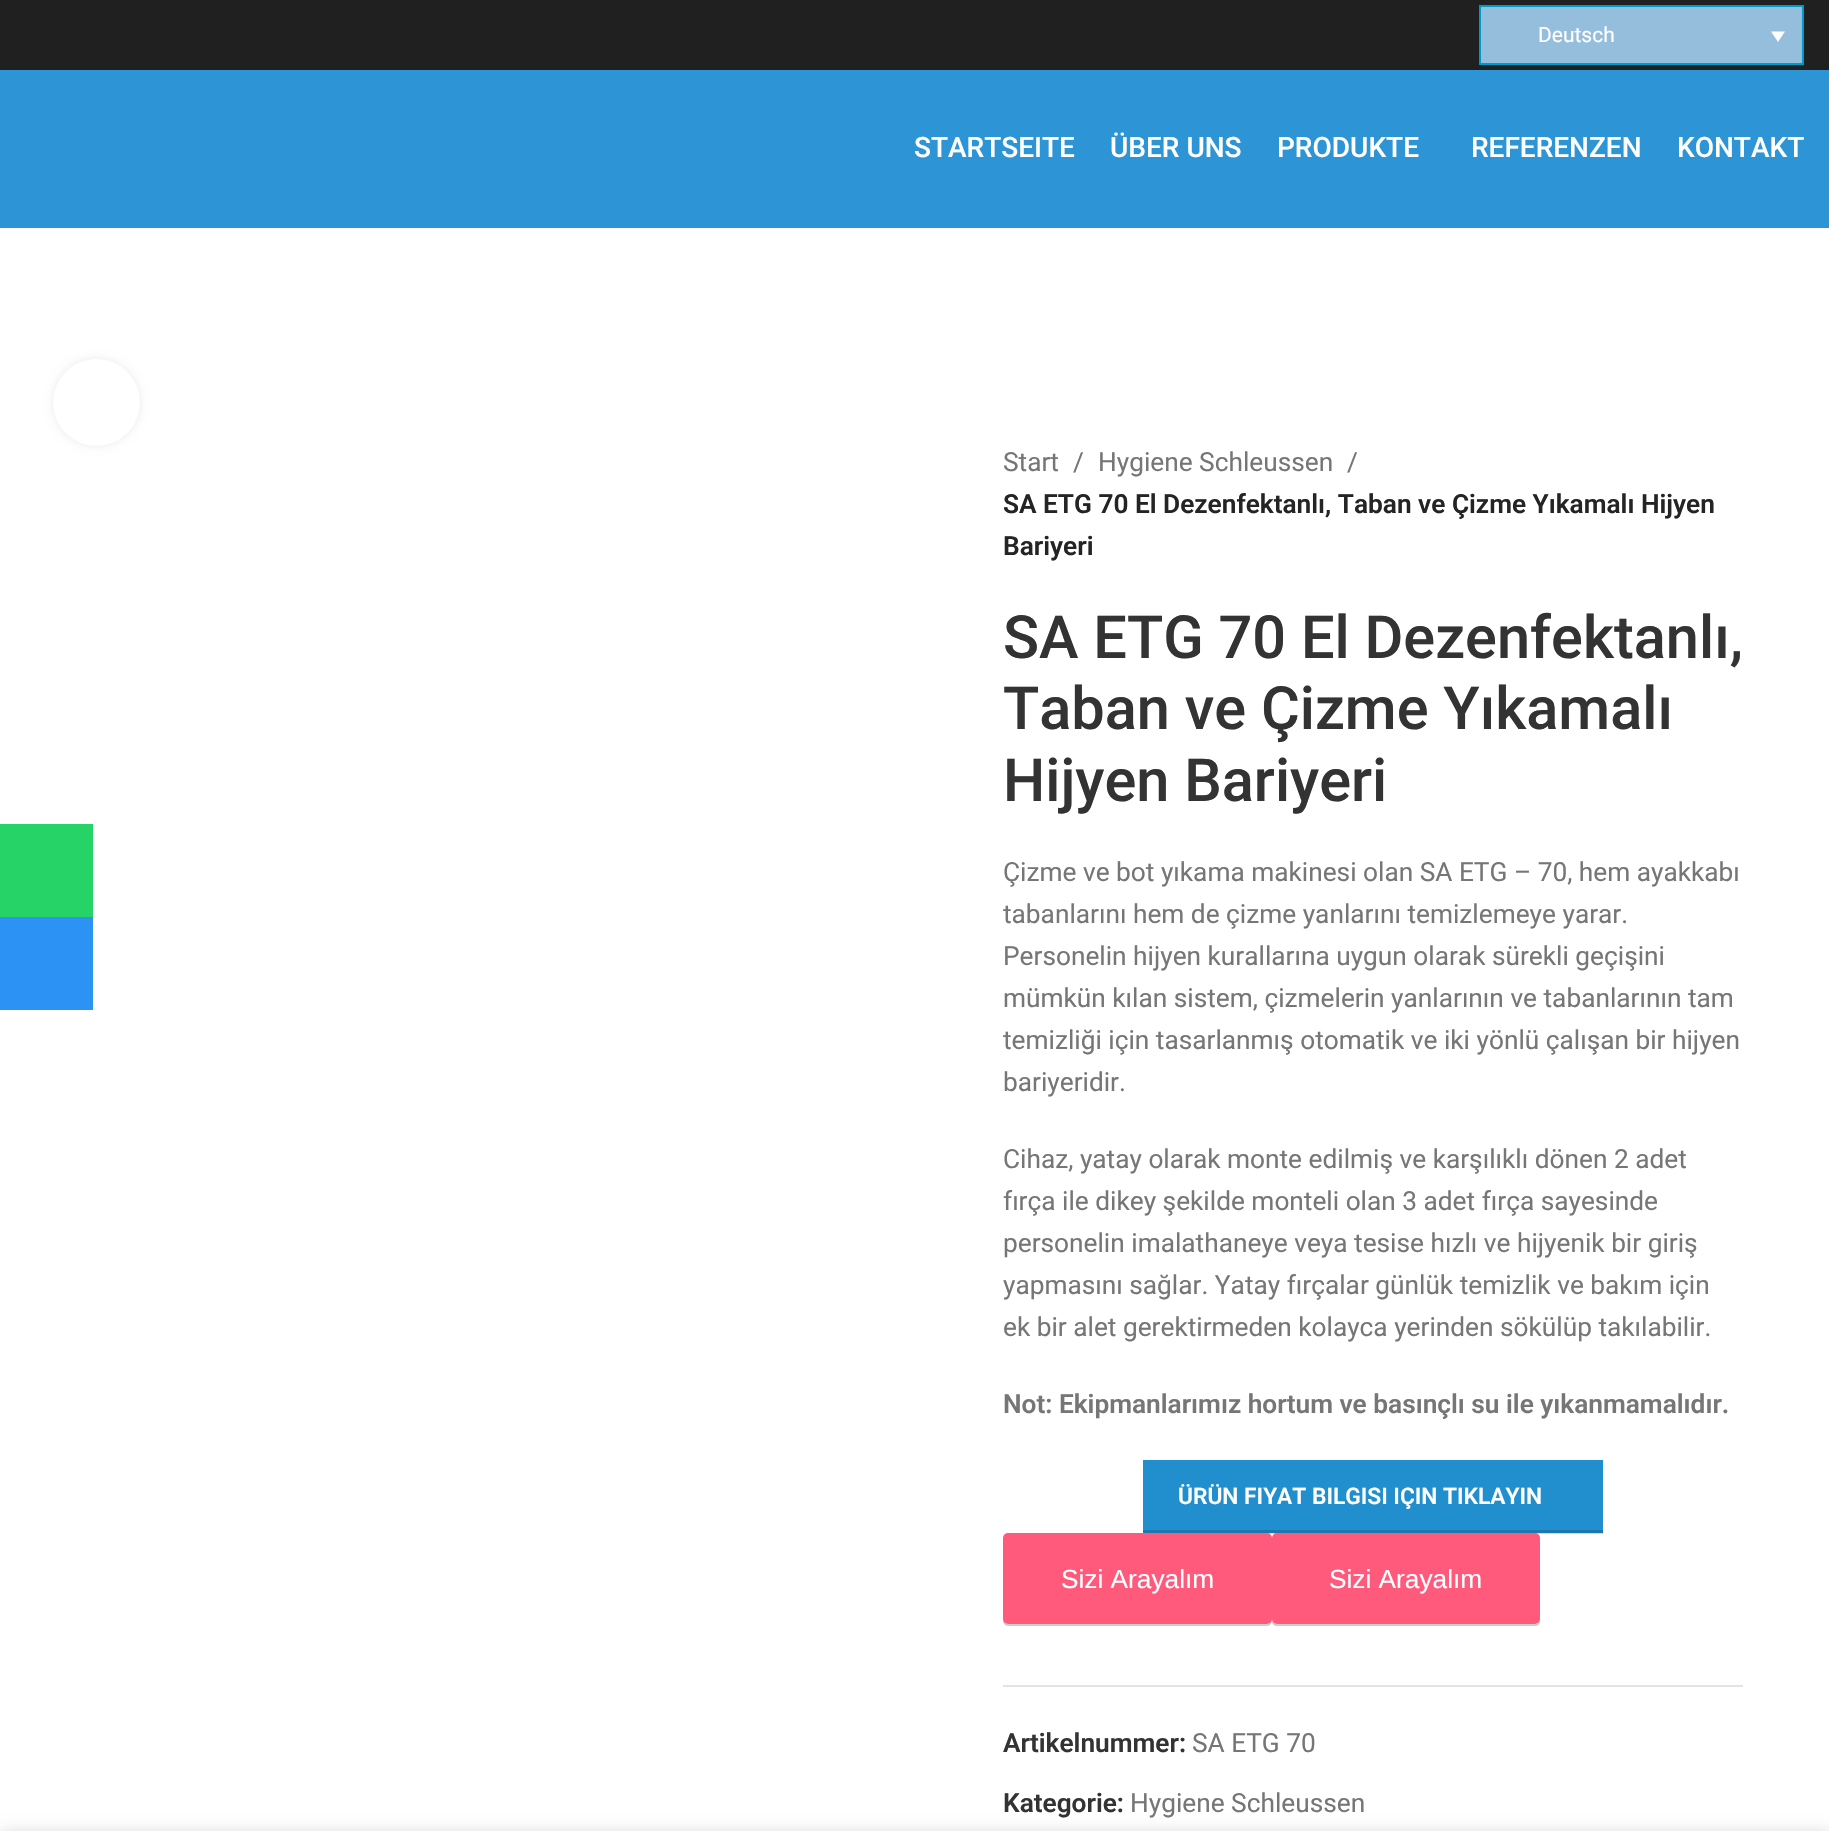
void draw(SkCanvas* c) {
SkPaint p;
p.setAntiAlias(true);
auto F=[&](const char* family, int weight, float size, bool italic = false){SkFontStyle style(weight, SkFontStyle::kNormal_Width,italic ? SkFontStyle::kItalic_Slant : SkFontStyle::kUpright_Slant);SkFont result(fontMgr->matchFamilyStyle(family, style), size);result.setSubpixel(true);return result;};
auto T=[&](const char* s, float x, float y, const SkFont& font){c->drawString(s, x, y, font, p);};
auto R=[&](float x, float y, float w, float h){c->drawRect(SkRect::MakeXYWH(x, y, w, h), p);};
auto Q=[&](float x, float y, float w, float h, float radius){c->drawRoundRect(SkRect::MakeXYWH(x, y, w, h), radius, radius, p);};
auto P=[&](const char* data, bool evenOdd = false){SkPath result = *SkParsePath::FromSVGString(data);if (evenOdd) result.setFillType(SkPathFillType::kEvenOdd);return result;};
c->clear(0xffffffff);
p.setColor(0xffd9d9d9);
R(1267,1533,336,1);
p.setColor(0xff26d367);
R(0,824,93,93);
p.setColor(0xff2c93f4);
R(0,917,93,93);
p.setColor(0xff202020);
R(0,0,1829,70);
p.setColor(0xff95bedd);
c->drawRect(SkRect::MakeXYWH(1480,6,323,58),p);
p.setStroke(true);
p.setStrokeWidth(2);
p.setColor(0xff0099cc);
c->drawRect(SkRect::MakeXYWH(1480,6,323,58),p);
auto f1 = F("Roboto",400,21);
p.setStroke(false);
p.setColor(0xffffffff);
T("Deutsch",1538,42,f1);
c->drawPath(P("M1771 31.5h14l-7 10.5z"),p);
p.setColor(0xff2d94d6);
R(0,70,1829,158);
auto f2 = F("Roboto",500,28);
p.setColor(0xffffffff);
T("STARTSEITE",914,157,f2);
T("ÜBER UNS",1110,157,f2);
T("PRODUKTE",1277,157,f2);
T("REFERENZEN",1471,157,f2);
T("KONTAKT",1677,157,f2);
p.setColor(0x14000000);
p.setMaskFilter(SkMaskFilter::MakeBlur(kNormal_SkBlurStyle, 4.5));
c->drawRoundRect(SkRect::MakeXYWH(53,359,87,87),43.5,43.5,p);
p.setMaskFilter(nullptr);
p.setColor(0xffffffff);
c->drawCircle(96.5,402.5,43.5,p);
auto f3 = F("Roboto",400,26.25);
p.setColor(0xff767676);
T("Start",1003,471,f3);
T("/",1073,471,f3);
T("Hygiene Schleussen",1098,471,f3);
T("/",1347,471,f3);
auto f4 = F("Roboto",600,26.25);
p.setColor(0xff242424);
T("SA ETG 70 El Dezenfektanlı, Taban ve Çizme Yıkamalı Hijyen",1003,513,f4);
T("Bariyeri",1003,555,f4);
auto f5 = F("Roboto",500,59.5);
p.setColor(0xff333333);
T("SA ETG 70 El Dezenfektanlı,",1003,658,f5);
T("Taban ve Çizme Yıkamalı",1003,729,f5);
T("Hijyen Bariyeri",1003,801,f5);
p.setColor(0xff767676);
T("Çizme ve bot yıkama makinesi olan SA ETG – 70, hem ayakkabı",1003,881,f3);
T("tabanlarını hem de çizme yanlarını temizlemeye yarar.",1003,923,f3);
T("Personelin hijyen kurallarına uygun olarak sürekli geçişini",1003,965,f3);
T("mümkün kılan sistem, çizmelerin yanlarının ve tabanlarının tam",1003,1007,f3);
T("temizliği için tasarlanmış otomatik ve iki yönlü çalışan bir hijyen",1003,1049,f3);
T("bariyeridir.",1003,1091,f3);
T("Cihaz, yatay olarak monte edilmiş ve karşılıklı dönen 2 adet",1003,1168,f3);
T("fırça ile dikey şekilde monteli olan 3 adet fırça sayesinde",1003,1210,f3);
T("personelin imalathaneye veya tesise hızlı ve hijyenik bir giriş",1003,1252,f3);
T("yapmasını sağlar. Yatay fırçalar günlük temizlik ve bakım için",1003,1294,f3);
T("ek bir alet gerektirmeden kolayca yerinden sökülüp takılabilir.",1003,1336,f3);
T("Not: Ekipmanlarımız hortum ve basınçlı su ile yıkanmamalıdır.",1003,1413,f4);
p.setColor(0xff218ece);
R(1143,1460,460,70);
p.setColor(0xff1c79af);
R(1143,1530,460,3);
auto f6 = F("Roboto",600,22.75);
p.setColor(0xffffffff);
T("ÜRÜN FIYAT BILGISI IÇIN TIKLAYIN",1178,1504,f6);
p.setColor(0xffcccccc);
c->drawPath(P("M1003 1620c0 3 2 6 5 6h259c3 0 5-3 5-6c-1 2-3 4-5 4h-259c-2 0-4-2-5-4z"),p);
p.setColor(0xffff597c);
Q(1003,1533,269,91,5);
auto f7 = F("Liberation Sans",400,26.25);
p.setColor(0xffffffff);
T("Sizi Arayalım",1061,1588,f7);
p.setColor(0xffcccccc);
c->drawPath(P("M1272 1538v83c0 3 2 5 5 5h258c3 0 5-2 5-5v-2c0 3-2 5-5 5h-257c-3 0-6-2-6-5z"),p);
p.setColor(0xffff597c);
Q(1272,1533,268,91,5);
p.setColor(0xffffffff);
T("Sizi Arayalım",1329,1588,f7);
p.setColor(0xffe4e4e4);
R(1003,1685,740,2);
p.setColor(0xff333333);
T("Artikelnummer:",1003,1752,f4);
p.setColor(0xff767676);
T("SA ETG 70",1192,1752,f3);
p.setColor(0xff333333);
T("Kategorie:",1003,1812,f4);
p.setColor(0xff767676);
T("Hygiene Schleussen",1130,1812,f3);
p.setColor(0x24000000);
p.setMaskFilter(SkMaskFilter::MakeBlur(kNormal_SkBlurStyle, 8));
c->drawRect(SkRect::MakeXYWH(0,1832,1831,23),p);
p.setMaskFilter(nullptr);
}
